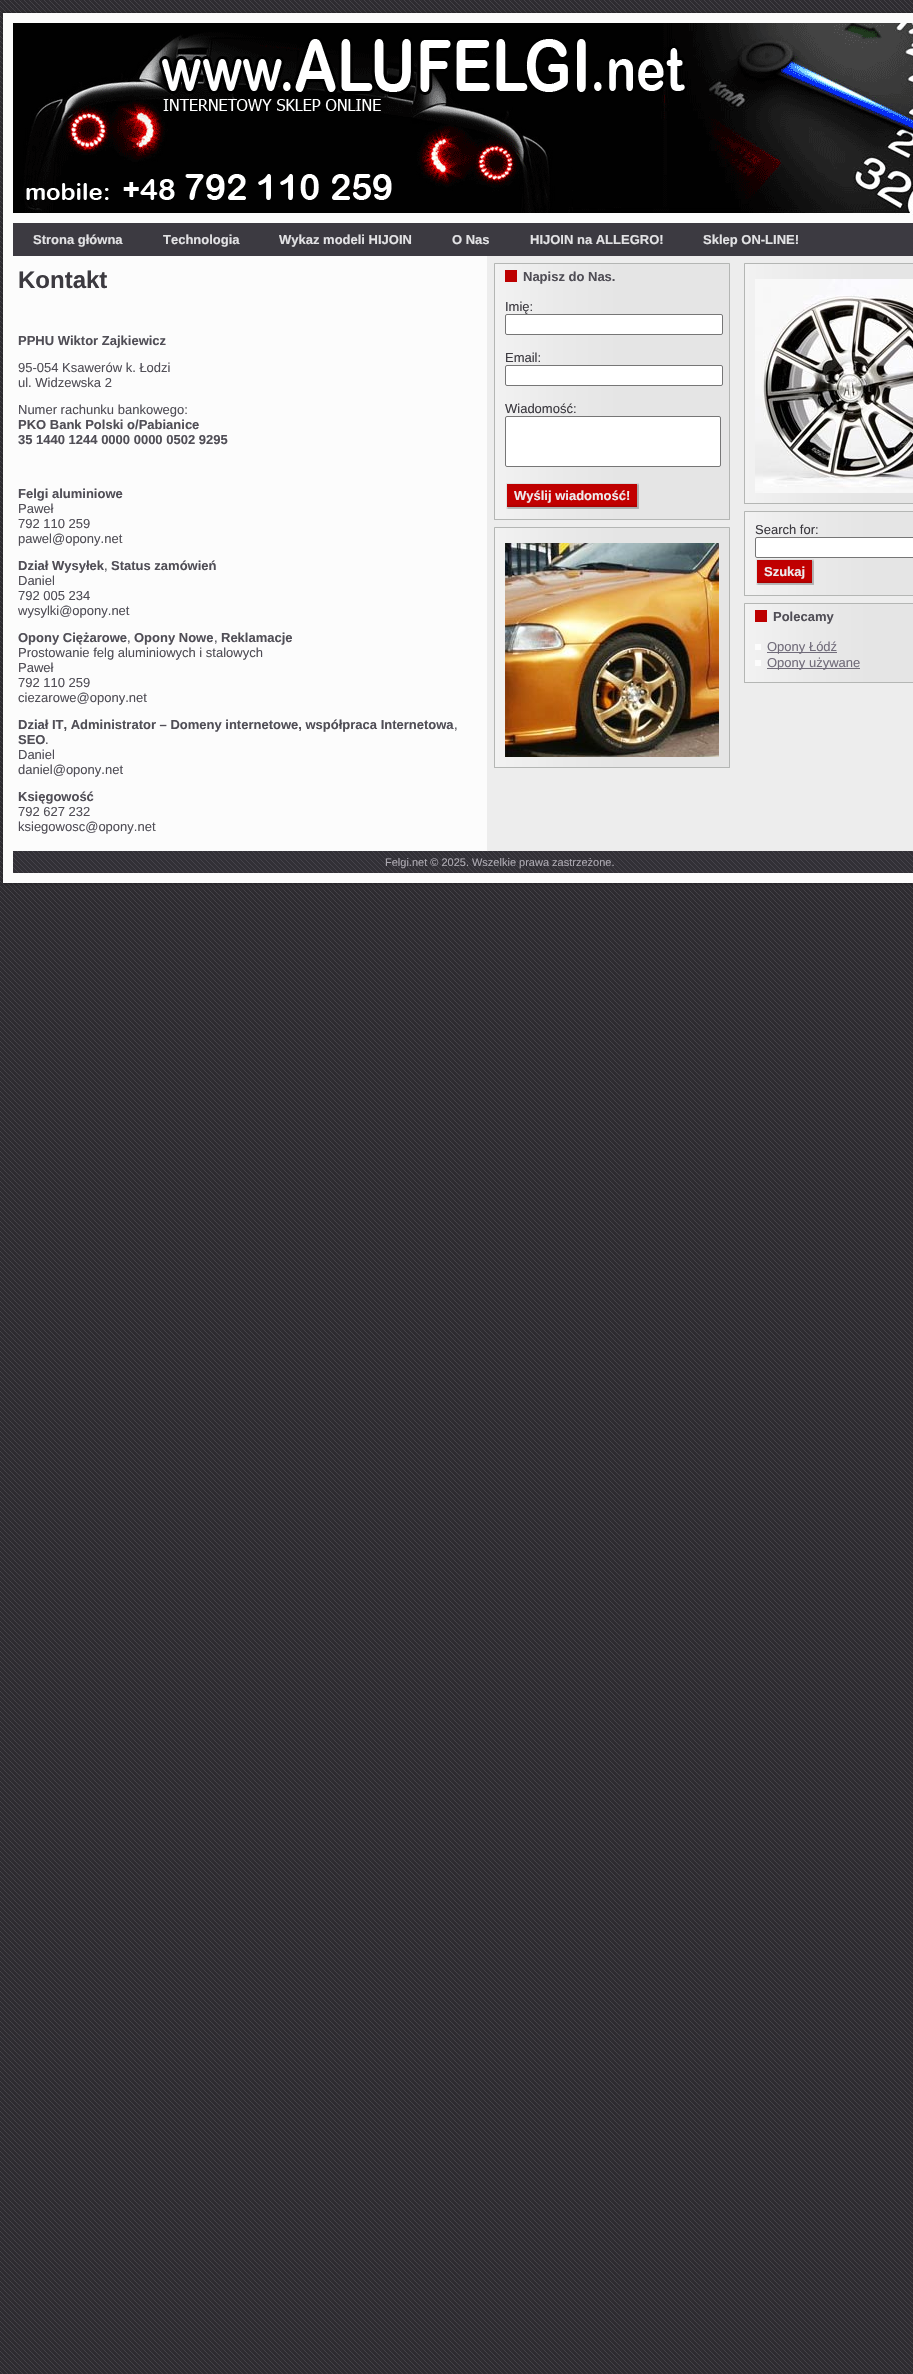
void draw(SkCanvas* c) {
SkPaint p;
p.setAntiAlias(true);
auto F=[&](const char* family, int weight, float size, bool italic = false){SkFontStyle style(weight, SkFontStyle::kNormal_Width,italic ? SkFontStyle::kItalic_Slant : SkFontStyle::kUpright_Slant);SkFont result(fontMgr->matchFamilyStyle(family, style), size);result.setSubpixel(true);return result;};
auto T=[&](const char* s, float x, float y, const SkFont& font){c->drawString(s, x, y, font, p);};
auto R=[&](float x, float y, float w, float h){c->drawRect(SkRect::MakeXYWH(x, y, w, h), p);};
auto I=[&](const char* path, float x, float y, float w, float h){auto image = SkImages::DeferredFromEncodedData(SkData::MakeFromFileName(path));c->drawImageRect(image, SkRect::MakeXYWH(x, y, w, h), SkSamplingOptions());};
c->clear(0xffffffff);
I("1.png",0,0,913,2374);
I("2.png",1,11,12,12);
I("3.png",13,11,900,12);
I("4.png",1,23,12,850);
p.setColor(0xfffcfcfc);
R(13,215,900,636);
I("5.png",13,23,900,192);
p.setColor(0xff3c3a41);
R(13,223,900,33);
auto f1 = F("Liberation Sans",700,13);
p.setColor(0xffe2e2e4);
T("Strona główna",33,244,f1);
T("Technologia",163,244,f1);
T("Wykaz modeli HIJOIN",279,244,f1);
T("O Nas",452,244,f1);
T("HIJOIN na ALLEGRO!",530,244,f1);
T("Sklep ON-LINE!",703,244,f1);
auto f2 = F("Liberation Sans",700,24);
p.setColor(0xff3c3a40);
T("Kontakt",18,288,f2);
p.setColor(0xff504e56);
T("PPHU Wiktor Zajkiewicz",18,345,f1);
auto f3 = F("Liberation Sans",400,13);
T("95-054 Ksawerów k. Łodzi",18,372,f3);
T("ul. Widzewska 2",18,387,f3);
T("Numer rachunku bankowego:",18,414,f3);
T("PKO Bank Polski o/Pabianice",18,429,f1);
T("35 1440 1244 0000 0000 0502 9295",18,444,f1);
T("Felgi aluminiowe",18,498,f1);
T("Paweł",18,513,f3);
T("792 110 259",18,528,f3);
T("pawel@opony.net",18,543,f3);
T("Dział Wysyłek",18,570,f1);
T(",",104,570,f3);
T("Status zamówień",111,570,f1);
T("Daniel",18,585,f3);
T("792 005 234",18,600,f3);
T("wysylki@opony.net",18,615,f3);
T("Opony Ciężarowe",18,642,f1);
T(",",127,642,f3);
T("Opony Nowe",134,642,f1);
T(",",214,642,f3);
T("Reklamacje",221,642,f1);
T("Prostowanie felg aluminiowych i stalowych",18,657,f3);
T("Paweł",18,672,f3);
T("792 110 259",18,687,f3);
T("ciezarowe@opony.net",18,702,f3);
T("Dział IT, Administrator – Domeny internetowe, współpraca Internetowa",18,729,f1);
T(",",454,729,f3);
T("SEO",18,744,f1);
T(".",45,744,f3);
T("Daniel",18,759,f3);
T("daniel@opony.net",18,774,f3);
T("Księgowość",18,801,f1);
T("792 627 232",18,816,f3);
T("ksiegowosc@opony.net",18,831,f3);
p.setColor(0xffededed);
R(487,256,426,595);
p.setColor(0xffbcc0bc);
R(494,263,1,1);
p.setColor(0xffb4b6b4);
R(495,263,234,1);
p.setColor(0xffbcc0bc);
R(729,263,1,1);
p.setColor(0xffb4b6b4);
R(494,264,1,255);
I("6.png",495,264,234,255);
R(729,264,1,255);
p.setColor(0xffbd0000);
R(505,270,12,12);
p.setColor(0xff504e56);
T("Napisz do Nas.",523,281,f1);
p.setColor(0xff3c3a40);
T("Imię:",505,311,f3);
p.setColor(0xffffffff);
c->drawRoundRect(SkRect::MakeXYWH(505.5,314.5,217,20),1.5,1.5,p);
p.setStroke(true);
p.setStrokeWidth(1);
p.setColor(0xff767676);
c->drawRoundRect(SkRect::MakeXYWH(505.5,314.5,217,20),1.5,1.5,p);
p.setStroke(false);
p.setColor(0xff3c3a40);
T("Email:",505,362,f3);
p.setColor(0xffffffff);
c->drawRoundRect(SkRect::MakeXYWH(505.5,365.5,217,20),1.5,1.5,p);
p.setStroke(true);
p.setColor(0xff767676);
c->drawRoundRect(SkRect::MakeXYWH(505.5,365.5,217,20),1.5,1.5,p);
p.setStroke(false);
p.setColor(0xff3c3a40);
T("Wiadomość:",505,413,f3);
p.setColor(0xffffffff);
c->drawRoundRect(SkRect::MakeXYWH(505.5,416.5,215,50),1.5,1.5,p);
p.setStroke(true);
p.setColor(0xff767676);
c->drawRoundRect(SkRect::MakeXYWH(505.5,416.5,215,50),1.5,1.5,p);
I("7.png",506,483,128,26);
I("8.png",634,483,5,26);
p.setStroke(false);
p.setColor(0xffedecee);
T("Wyślij wiadomość!",514,500,f1);
p.setColor(0xffb7b9b7);
R(494,519,1,1);
p.setColor(0xffb4b6b4);
R(495,519,234,1);
p.setColor(0xffb7b9b7);
R(729,519,1,1);
p.setColor(0xffbcc0bc);
R(494,527,1,1);
p.setColor(0xffb4b6b4);
R(495,527,234,1);
p.setColor(0xffbcc0bc);
R(729,527,1,1);
p.setColor(0xffb4b6b4);
R(494,528,1,239);
I("9.png",495,528,234,239);
R(729,528,1,239);
I("10.png",505,543,214,214);
p.setColor(0xffb7b9b7);
R(494,767,1,1);
p.setColor(0xffb4b6b4);
R(495,767,234,1);
p.setColor(0xffb7b9b7);
R(729,767,1,1);
p.setColor(0xffbcc0bc);
R(744,263,1,1);
p.setColor(0xffb4b6b4);
R(745,263,168,1);
R(744,264,1,239);
I("11.png",745,264,168,239);
I("12.png",755,279,158,214);
p.setColor(0xffb7b9b7);
R(744,503,1,1);
p.setColor(0xffb4b6b4);
R(745,503,168,1);
p.setColor(0xffbcc0bc);
R(744,511,1,1);
p.setColor(0xffb4b6b4);
R(745,511,168,1);
R(744,512,1,83);
I("13.png",745,512,168,83);
p.setColor(0xff3c3a40);
T("Search for:",755,534,f3);
p.setColor(0xffffffff);
c->drawRoundRect(SkRect::MakeXYWH(755.5,537.5,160,20),1.5,1.5,p);
p.setStroke(true);
p.setColor(0xff767676);
c->drawRoundRect(SkRect::MakeXYWH(755.5,537.5,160,20),1.5,1.5,p);
I("14.png",756,559,53,26);
I("15.png",809,559,5,26);
p.setStroke(false);
p.setColor(0xffedecee);
T("Szukaj",764,576,f1);
p.setColor(0xffb7b9b7);
R(744,595,1,1);
p.setColor(0xffb4b6b4);
R(745,595,168,1);
p.setColor(0xffbcc0bc);
R(744,603,1,1);
p.setColor(0xffb4b6b4);
R(745,603,168,1);
R(744,604,1,78);
I("16.png",745,604,168,78);
p.setColor(0xffbd0000);
R(755,610,12,12);
p.setColor(0xff504e56);
T("Polecamy",773,621,f1);
p.setColor(0xfffcfcfc);
R(755,644,6,6);
p.setColor(0xff716c7a);
R(767,652,70,1);
T("Opony Łódź",767,651,f3);
p.setColor(0xfffcfcfc);
R(755,660,6,6);
p.setColor(0xff716c7a);
R(767,668,93,1);
T("Opony używane",767,667,f3);
p.setColor(0xffb7b9b7);
R(744,682,1,1);
p.setColor(0xffb4b6b4);
R(745,682,168,1);
I("17.png",13,851,900,22);
auto f4 = F("Liberation Sans",400,11);
p.setColor(0xffaca9b1);
T("Felgi.net © 2025. Wszelkie prawa zastrzeżone.",385,866,f4);
I("18.png",1,873,12,13);
I("19.png",13,873,900,13);
}
